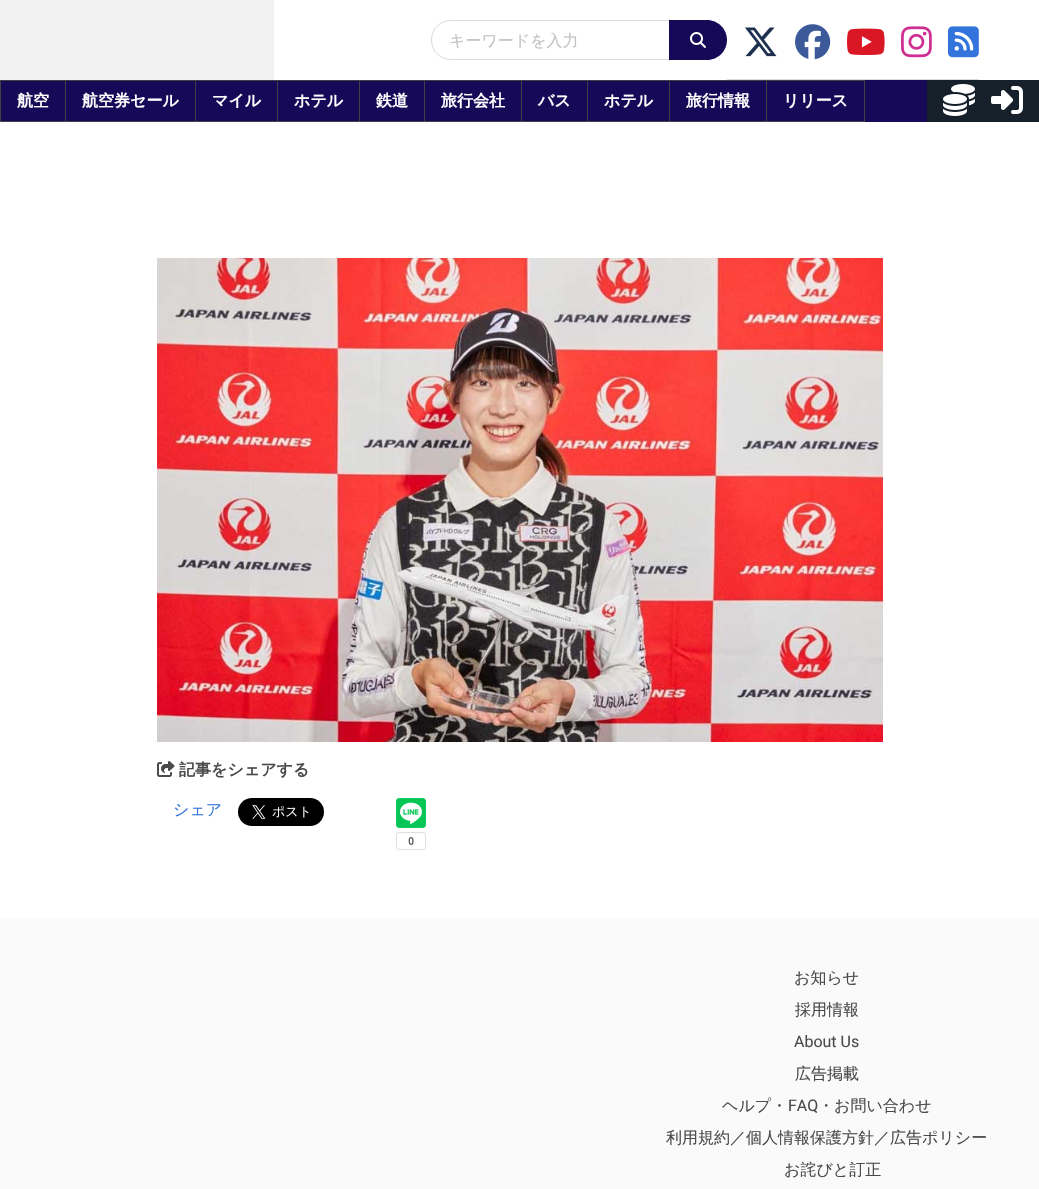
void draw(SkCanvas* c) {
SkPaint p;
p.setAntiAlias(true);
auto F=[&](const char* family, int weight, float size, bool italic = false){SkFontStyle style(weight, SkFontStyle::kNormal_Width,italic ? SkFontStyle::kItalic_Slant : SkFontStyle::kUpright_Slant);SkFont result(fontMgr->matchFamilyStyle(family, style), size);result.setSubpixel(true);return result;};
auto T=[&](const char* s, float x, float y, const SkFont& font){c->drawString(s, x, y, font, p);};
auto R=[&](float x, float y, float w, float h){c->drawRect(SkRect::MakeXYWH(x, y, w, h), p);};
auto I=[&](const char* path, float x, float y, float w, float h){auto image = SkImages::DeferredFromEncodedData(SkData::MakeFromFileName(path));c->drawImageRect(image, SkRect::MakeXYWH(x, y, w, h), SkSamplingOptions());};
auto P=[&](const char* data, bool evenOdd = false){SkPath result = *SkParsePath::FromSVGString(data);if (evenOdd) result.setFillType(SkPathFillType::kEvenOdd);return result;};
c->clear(0xffffffff);
p.setColor(0xfff2f2f2);
R(0,0,274,80);
p.setStroke(true);
p.setStrokeWidth(1);
p.setColor(0xffdbdbdb);
c->drawPath(P("M451 20.5h218.5v39h-218.5c-11 0-19.5-8.5-19.5-19.5c0-11 8.5-19.5 19.5-19.5z"),p);
auto f1 = F("WenQuanYi Zen Hei",500,16);
p.setStroke(false);
p.setColor(0xffc3c3c3);
T("キーワードを入力",449,46,f1);
p.setColor(0xff150958);
c->drawPath(P("M669 20h38c11 0 20 9 20 20c0 11-9 20-20 20h-38z"),p);
I("1.png",690,32,16,16);
p.setColor(0xffdbdbdb);
R(727,79,252,1);
I("2.png",745,27,32,30);
I("3.png",795,24,36,36);
I("4.png",847,28,38,27);
I("5.png",901,26,31,32);
I("6.png",948,26,31,32);
p.setColor(0xff150958);
R(1,80,926,42);
p.setStroke(true);
p.setColor(0xff414042);
c->drawRect(SkRect::MakeXYWH(.5,80.5,65,41),p);
auto f2 = F("WenQuanYi Zen Hei",700,16);
p.setStroke(false);
p.setColor(0xffffffff);
T("航空",17,106,f2);
p.setStroke(true);
p.setColor(0xff414042);
c->drawRect(SkRect::MakeXYWH(65.5,80.5,130,41),p);
p.setStroke(false);
p.setColor(0xffffffff);
T("航空券セール",82,106,f2);
p.setStroke(true);
p.setColor(0xff414042);
c->drawRect(SkRect::MakeXYWH(195.5,80.5,82,41),p);
p.setStroke(false);
p.setColor(0xffffffff);
T("マイル",212,106,f2);
p.setStroke(true);
p.setColor(0xff414042);
c->drawRect(SkRect::MakeXYWH(277.5,80.5,82,41),p);
p.setStroke(false);
p.setColor(0xffffffff);
T("ホテル",294,106,f2);
p.setStroke(true);
p.setColor(0xff414042);
c->drawRect(SkRect::MakeXYWH(359.5,80.5,65,41),p);
p.setStroke(false);
p.setColor(0xffffffff);
T("鉄道",376,106,f2);
p.setStroke(true);
p.setColor(0xff414042);
c->drawRect(SkRect::MakeXYWH(424.5,80.5,97,41),p);
p.setStroke(false);
p.setColor(0xffffffff);
T("旅行会社",441,106,f2);
p.setStroke(true);
p.setColor(0xff414042);
c->drawRect(SkRect::MakeXYWH(521.5,80.5,66,41),p);
p.setStroke(false);
p.setColor(0xffffffff);
T("バス",538,106,f2);
p.setStroke(true);
p.setColor(0xff414042);
c->drawRect(SkRect::MakeXYWH(587.5,80.5,82,41),p);
p.setStroke(false);
p.setColor(0xffffffff);
T("ホテル",604,106,f2);
p.setStroke(true);
p.setColor(0xff414042);
c->drawRect(SkRect::MakeXYWH(669.5,80.5,97,41),p);
p.setStroke(false);
p.setColor(0xffffffff);
T("旅行情報",686,106,f2);
p.setStroke(true);
p.setColor(0xff414042);
c->drawRect(SkRect::MakeXYWH(766.5,80.5,98,41),p);
p.setStroke(false);
p.setColor(0xffffffff);
T("リリース",783,106,f2);
p.setColor(0xff15202b);
R(927,80,112,42);
I("7.png",943,84,32,32);
I("8.png",991,86,32,28);
I("9.png",157,258,726,484);
I("10.png",157,761,18,16);
p.setColor(0xff4a4a4a);
T("記事をシェアする",179,775,f2);
p.setColor(0xff3273dc);
T("シェア",173,815,f1);
I("11.png",238,798,86,28);
I("12.png",396,798,30,52);
p.setColor(0xfffafafa);
R(0,918,1039,271);
p.setColor(0xff4a4a4a);
T("お知らせ",794,983,f1);
T("採用情報",795,1015,f1);
auto f3 = F("Roboto",400,16);
T("About Us",794,1047,f3);
T("広告掲載",795,1079,f1);
T("ヘルプ・",722,1111,f1);
T("FAQ",788,1111,f3);
T("・お問い合わせ",818,1111,f1);
T("利用規約／個人情報保護方針／広告ポリシー",666,1143,f1);
T("お詫びと訂正",784,1175,f1);
}
